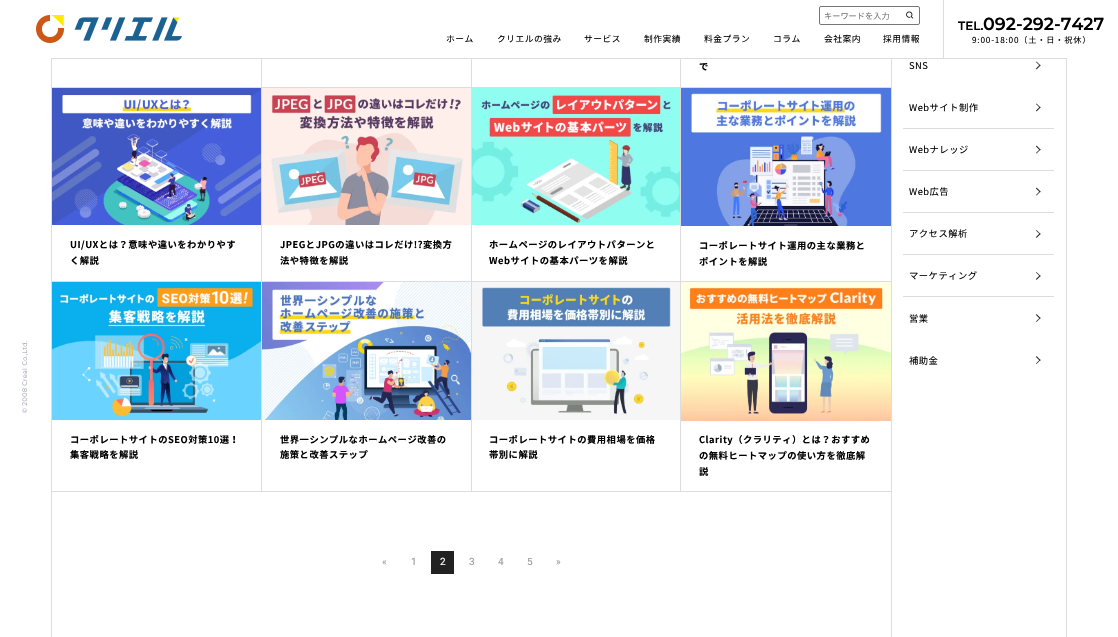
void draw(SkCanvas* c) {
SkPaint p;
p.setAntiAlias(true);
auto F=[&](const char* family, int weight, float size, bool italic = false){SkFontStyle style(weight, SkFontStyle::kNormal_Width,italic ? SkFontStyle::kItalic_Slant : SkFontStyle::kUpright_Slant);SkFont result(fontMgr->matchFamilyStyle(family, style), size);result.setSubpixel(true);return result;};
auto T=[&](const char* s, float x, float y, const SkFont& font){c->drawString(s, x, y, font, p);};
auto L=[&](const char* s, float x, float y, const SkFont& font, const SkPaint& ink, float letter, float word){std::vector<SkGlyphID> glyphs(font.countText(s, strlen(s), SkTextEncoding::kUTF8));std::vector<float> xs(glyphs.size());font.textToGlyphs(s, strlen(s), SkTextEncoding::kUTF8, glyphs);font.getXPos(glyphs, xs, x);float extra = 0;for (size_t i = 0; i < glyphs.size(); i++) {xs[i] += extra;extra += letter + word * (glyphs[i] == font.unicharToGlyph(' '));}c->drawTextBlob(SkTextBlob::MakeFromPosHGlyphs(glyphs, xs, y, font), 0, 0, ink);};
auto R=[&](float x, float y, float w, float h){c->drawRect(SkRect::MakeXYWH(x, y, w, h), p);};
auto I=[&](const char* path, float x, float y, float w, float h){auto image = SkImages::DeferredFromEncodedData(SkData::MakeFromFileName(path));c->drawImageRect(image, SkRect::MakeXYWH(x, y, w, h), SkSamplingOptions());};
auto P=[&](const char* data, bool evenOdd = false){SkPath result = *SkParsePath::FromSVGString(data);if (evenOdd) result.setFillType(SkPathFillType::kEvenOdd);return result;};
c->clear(0xffffffff);
p.setColor(0xffdddddd);
R(52,58,1014,1);
I("1.png",36,15,146,28);
p.setStroke(true);
p.setStrokeWidth(1);
p.setColor(0xff767676);
c->drawRoundRect(SkRect::MakeXYWH(819.5,6.5,100,18),1.5,1.5,p);
auto f1 = F("Noto Sans CJK JP",400,8.2);
p.setStroke(false);
p.setColor(0xff757575);
T("キーワードを入力",824,19,f1);
I("2.png",906,11,8,8);
auto f2 = F("Noto Sans CJK JP",400,8.75);
p.setColor(0xff000000);
L("ホーム",446,42,f2,p,.5,0);
L("クリエルの強み",497,42,f2,p,.5,0);
L("サービス",584,42,f2,p,.5,0);
L("制作実績",644,42,f2,p,.5,0);
L("料金プラン",704,42,f2,p,.5,0);
L("コラム",773,42,f2,p,.5,0);
L("会社案内",824,42,f2,p,.5,0);
L("採用情報",883,42,f2,p,.5,0);
p.setColor(0xffdddddd);
R(943,0,1,58);
auto f3 = F("Montserrat",600,12);
p.setColor(0xff000000);
T("TEL.",958,30,f3);
auto f4 = F("Montserrat",600,17.5);
T("092-292-7427",983,30,f4);
L("9:00-18:00（土・日・祝休）",972,43,f1,p,.8,0);
p.setColor(0xffdddddd);
R(51,58,1,579);
I("3.png",22,341,6,72);
R(1066,58,1,579);
R(261,59,1,433);
R(52,87,210,1);
R(471,59,1,433);
R(262,87,210,1);
R(680,59,1,433);
R(472,87,419,1);
auto f5 = F("Noto Sans CJK JP",700,9.3);
p.setColor(0xff000000);
L("で",699,70,f5,p,.5,0);
p.setColor(0xffdddddd);
R(52,281,839,1);
I("4.png",52,88,209,137);
p.setColor(0xff000000);
L("UI/UXとは？意味や違いをわかりやす",70,248,f5,p,.5,0);
L("く解説",70,264,f5,p,.5,0);
I("5.png",262,88,209,137);
L("JPEGとJPGの違いはコレだけ!?変換方",280,248,f5,p,.5,0);
L("法や特徴を解説",280,264,f5,p,.5,0);
I("6.png",472,88,208,137);
L("ホームページのレイアウトパターンと",489,248,f5,p,.5,0);
L("Webサイトの基本パーツを解説",489,264,f5,p,.5,0);
I("7.png",681,88,210,138);
L("コーポレートサイト運用の主な業務と",699,249,f5,p,.5,0);
L("ポイントを解説",699,265,f5,p,.5,0);
p.setColor(0xffdddddd);
R(52,491,839,1);
I("8.png",52,282,209,138);
p.setColor(0xff000000);
L("コーポレートサイトのSEO対策10選！",70,443,f5,p,.5,0);
L("集客戦略を解説",70,458,f5,p,.5,0);
I("9.png",262,282,209,138);
L("世界一シンプルなホームページ改善の",280,443,f5,p,.5,0);
L("施策と改善ステップ",280,458,f5,p,.5,0);
I("10.png",472,282,208,138);
L("コーポレートサイトの費用相場を価格",489,443,f5,p,.5,0);
L("帯別に解説",489,458,f5,p,.5,0);
I("11.png",681,282,210,139);
L("Clarity（クラリティ）とは？おすすめ",699,443,f5,p,.5,0);
L("の無料ヒートマップの使い方を徹底解",699,459,f5,p,.5,0);
L("説",699,475,f5,p,.5,0);
auto f6 = F("Roboto",400,10);
p.setColor(0xff999999);
T("«",382,565,f6);
T("1",411,565,f6);
p.setColor(0xff222222);
R(431,551,23,23);
p.setColor(0xffffffff);
T("2",440,565,f6);
p.setColor(0xff999999);
T("3",469,565,f6);
T("4",498,565,f6);
T("5",527,565,f6);
T("»",556,565,f6);
p.setColor(0xffdddddd);
R(891,59,1,578);
auto f7 = F("Noto Sans CJK JP",400,9.3);
p.setColor(0xff000000);
L("SNS",909,69,f7,p,.5,0);
p.setColor(0xff222222);
c->drawPath(P("M1036 62l.5-.5l4 4l-.5 .5z"),p);
c->drawPath(P("M1036 68.5l4-4l.5 1l-4 4z"),p);
p.setColor(0xff000000);
L("Webサイト制作",909,111,f7,p,.5,0);
p.setColor(0xff222222);
c->drawPath(P("M1036 104l.5-.5l4 4l-.5 .5z"),p);
c->drawPath(P("M1036 110.5l4-4l.5 1l-4 4z"),p);
p.setColor(0xffdddddd);
R(903,128,151,1);
p.setColor(0xff000000);
L("Webナレッジ",909,153,f7,p,.5,0);
p.setColor(0xff222222);
c->drawPath(P("M1036 146.5l.5-1l4 4l-.5 1z"),p);
c->drawPath(P("M1036 153l4-4l.5 .5l-4 4z"),p);
p.setColor(0xffdddddd);
R(903,170,151,1);
p.setColor(0xff000000);
L("Web広告",909,195,f7,p,.5,0);
p.setColor(0xff222222);
c->drawPath(P("M1036 188.5l.5-1l4 4l-.5 1z"),p);
c->drawPath(P("M1036 195l4-4l.5 .5l-4 4z"),p);
p.setColor(0xffdddddd);
R(903,212,151,1);
p.setColor(0xff000000);
L("アクセス解析",909,237,f7,p,.5,0);
p.setColor(0xff222222);
c->drawPath(P("M1036 230.5l.5-.5l4 4l-.5 .5z"),p);
c->drawPath(P("M1036 237l4-4l.5 1l-4 4z"),p);
p.setColor(0xffdddddd);
R(903,254,151,1);
p.setColor(0xff000000);
L("マーケティング",909,279,f7,p,.5,0);
p.setColor(0xff222222);
c->drawPath(P("M1036 272.5l.5-.5l4 4l-.5 .5z"),p);
c->drawPath(P("M1036 279l4-4l.5 1l-4 4z"),p);
p.setColor(0xffdddddd);
R(903,296,151,1);
p.setColor(0xff000000);
L("営業",909,322,f7,p,.5,0);
p.setColor(0xff222222);
c->drawPath(P("M1036 315l.5-1l4 4l-.5 1z"),p);
c->drawPath(P("M1036 321.5l4-4l.5 .5l-4 4z"),p);
p.setColor(0xff000000);
L("補助金",909,364,f7,p,.5,0);
p.setColor(0xff222222);
c->drawPath(P("M1036 357l.5-1l4 4l-.5 1z"),p);
c->drawPath(P("M1036 363.5l4-4l.5 .5l-4 4z"),p);
}
